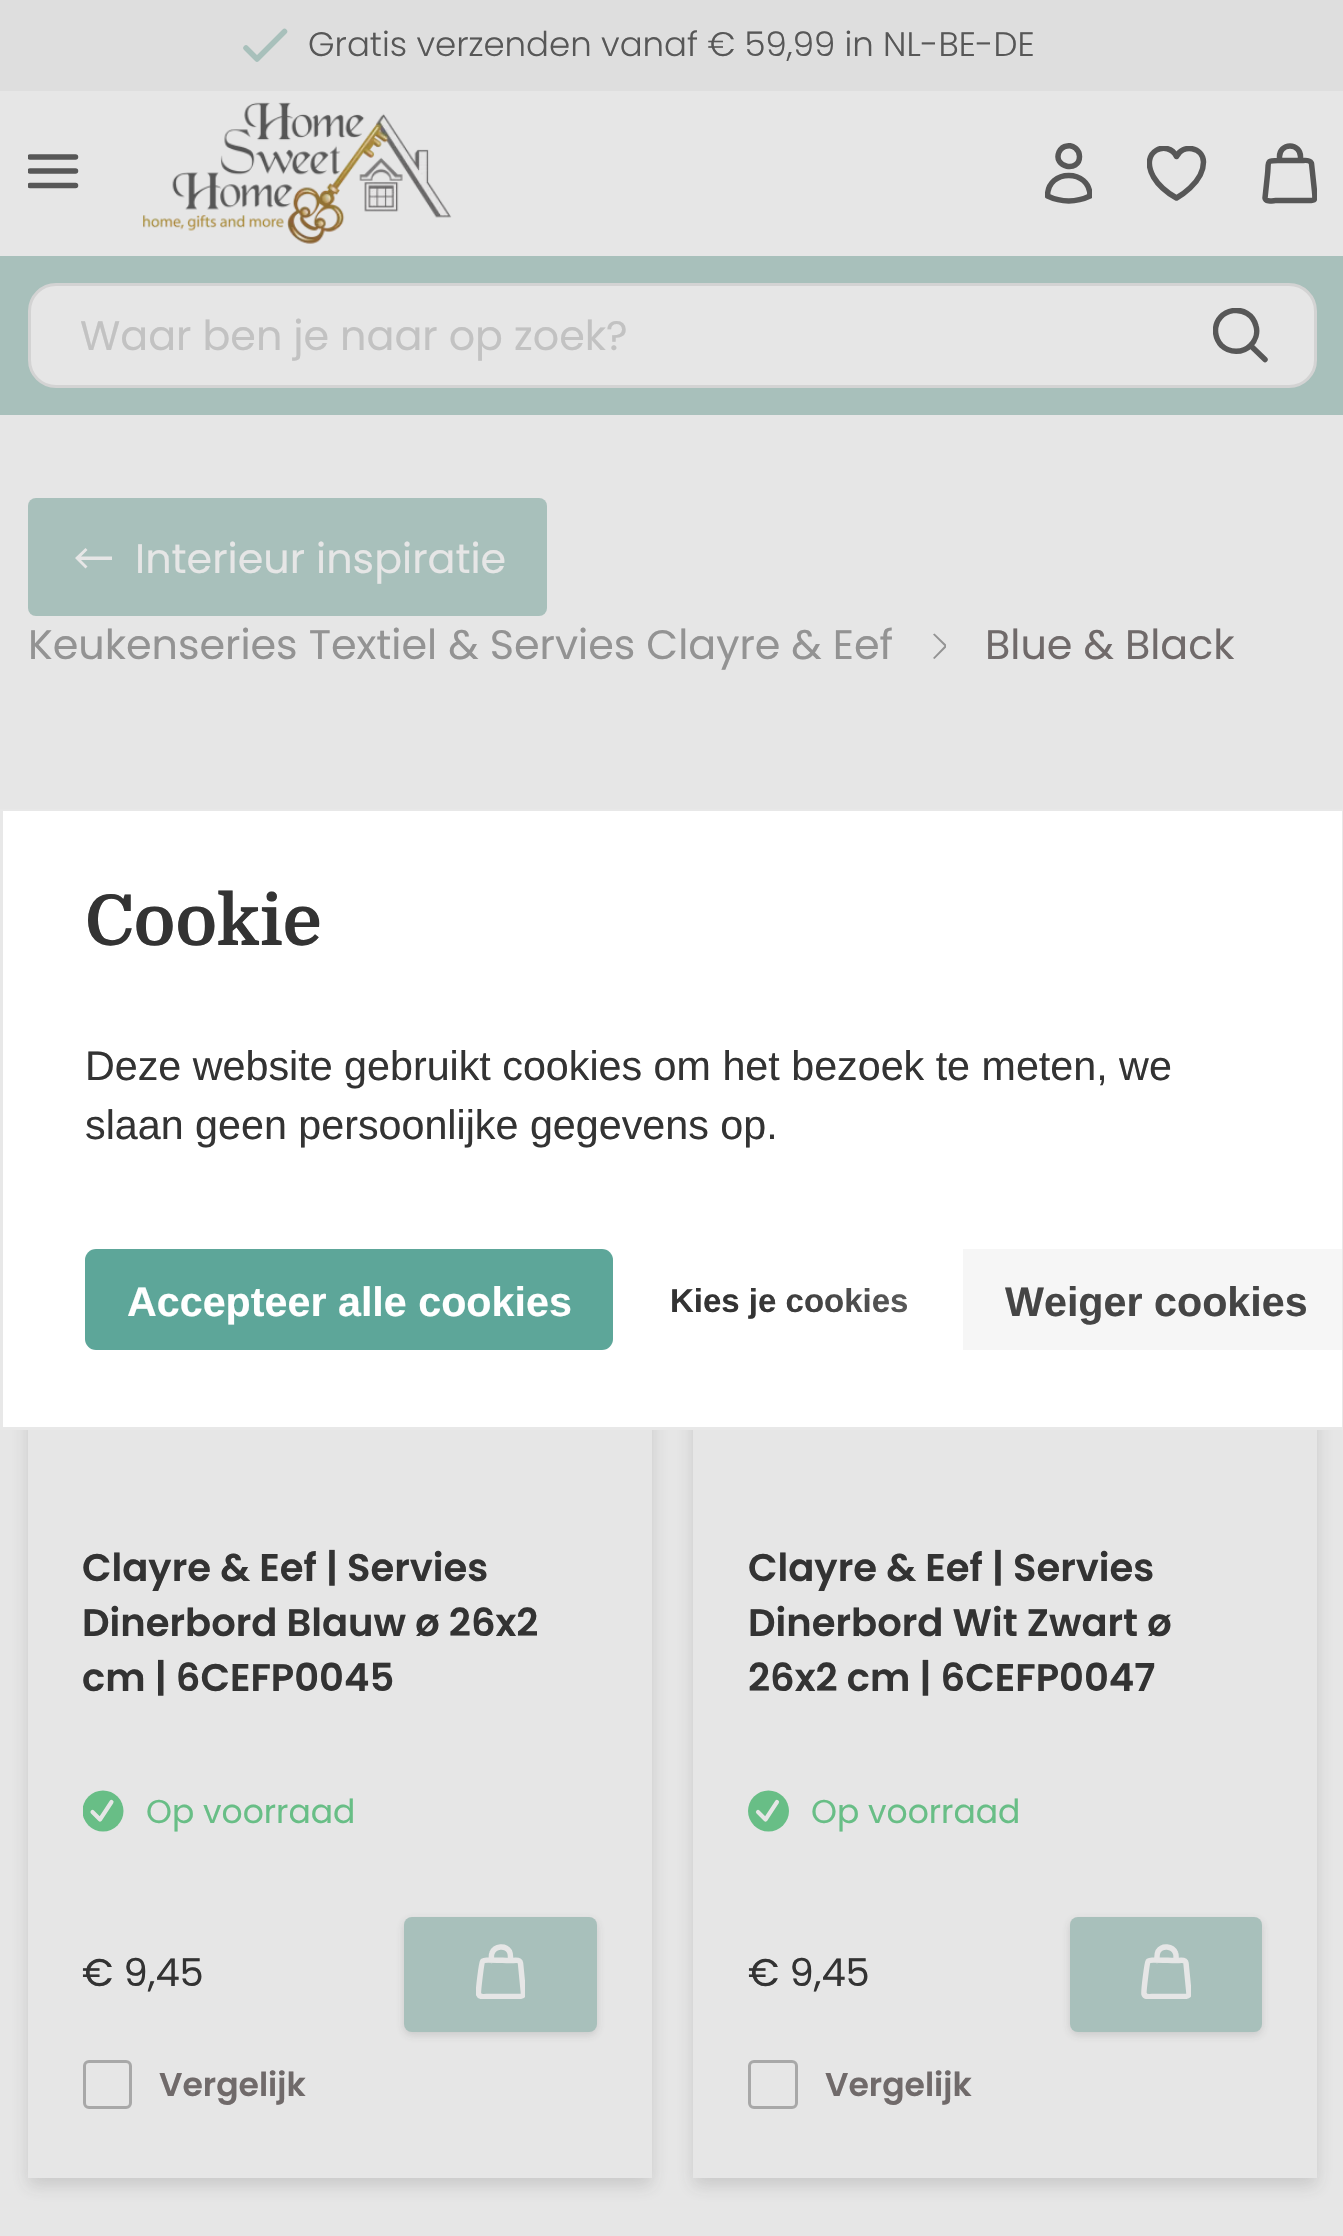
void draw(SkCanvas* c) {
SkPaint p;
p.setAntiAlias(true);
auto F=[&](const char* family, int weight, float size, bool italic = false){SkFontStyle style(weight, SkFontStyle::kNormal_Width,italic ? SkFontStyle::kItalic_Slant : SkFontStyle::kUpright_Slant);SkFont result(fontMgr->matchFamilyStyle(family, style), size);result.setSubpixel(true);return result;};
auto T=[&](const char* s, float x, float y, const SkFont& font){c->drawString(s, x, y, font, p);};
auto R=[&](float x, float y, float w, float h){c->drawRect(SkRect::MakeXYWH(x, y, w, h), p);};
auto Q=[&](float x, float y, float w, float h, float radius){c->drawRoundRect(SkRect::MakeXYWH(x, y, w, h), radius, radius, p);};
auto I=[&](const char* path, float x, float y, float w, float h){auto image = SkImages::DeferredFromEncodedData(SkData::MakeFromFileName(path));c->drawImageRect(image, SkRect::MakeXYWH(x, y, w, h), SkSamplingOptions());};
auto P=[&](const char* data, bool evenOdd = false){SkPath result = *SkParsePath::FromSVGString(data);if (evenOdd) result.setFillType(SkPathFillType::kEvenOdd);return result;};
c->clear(0xffe6e6e6);
p.setColor(0xffdedede);
R(0,0,1343,91);
p.setStroke(true);
p.setStrokeWidth(5.5);
p.setStrokeCap(SkPaint::kRound_Cap);
p.setStrokeJoin(SkPaint::kRound_Join);
p.setColor(0xffa8c0bb);
c->drawPath(P("M246 48l11 11l27.5-27.5"),p);
auto f1 = F("Poppins",300,34);
p.setStroke(false);
p.setColor(0xff575757);
T("Gratis verzenden vanaf € 59,99 in NL-BE-DE",308,56,f1);
c->save();
c->clipRect(SkRect::MakeXYWH(28,154,52,36));
p.setStroke(true);
c->drawPath(P("M30 157h45.5m-45.5 14h45.5m-45.5 14.5h45.5"),p);
c->restore();
I("1.png",143,102,309,142);
c->save();
c->clipRect(SkRect::MakeXYWH(1045,143,47,61));
c->drawPath(P("M1079.5 156.5c0 16.5-27 11-20.5-4.5c1.5-3 4.5-5.5 8-6c6-1.5 12.5 3.5 12.5 10.5zm-32 39.5c0-27.5 42.5-27.5 42.5 0c-13.5 6.5-29 6.5-42.5 0z"),p);
c->restore();
c->save();
c->clipRect(SkRect::MakeXYWH(1147,146,60,55));
c->drawPath(P("M1203.5 162c-.5-15-21-18.5-27-5.5c-8-17-38-6.5-23 20.5c5 8.5 14 16 23 21c0 0 27-14.5 27-36z"),p);
c->restore();
c->save();
c->clipRect(SkRect::MakeXYWH(1262,143,55,61));
c->drawPath(P("M1300.5 160.5v-4c0-6-4.5-10.5-10.5-10.5c-6 0-10.5 4.5-10.5 10.5v4m32 3l3 28c1 10.5 .5 9-10 9h-29c-2 0-10 2-10.5-2.5l2.5-23.5c1.5-13-2-14 10.5-14h24c2 0 7.5-1 9 2z"),p);
c->restore();
p.setStroke(false);
p.setColor(0xffa8c0bb);
R(0,256,1343,159);
p.setColor(0xffe6e6e6);
c->drawRoundRect(SkRect::MakeXYWH(29.5,284.5,1286,102),26.5,26.5,p);
p.setStroke(true);
p.setStrokeWidth(3);
p.setStrokeCap(SkPaint::kButt_Cap);
p.setStrokeJoin(SkPaint::kMiter_Join);
p.setColor(0xffd3d3d3);
c->drawRoundRect(SkRect::MakeXYWH(29.5,284.5,1286,102),26.5,26.5,p);
auto f2 = F("Poppins",400,41.25);
p.setStroke(false);
p.setColor(0xffc2c2c2);
T("Waar ben je naar op zoek?",80,350,f2);
c->save();
c->clipRect(SkRect::MakeXYWH(1213,308,55,55));
p.setStroke(true);
p.setStrokeWidth(5.5);
p.setStrokeCap(SkPaint::kRound_Cap);
p.setStrokeJoin(SkPaint::kRound_Join);
p.setColor(0xff575757);
c->drawPath(P("M1265 359.5l-14.5-14m0 0c5-5 7.5-12.5 5.5-19.5c-6-24-41.5-19-40.5 6c.5 5 2.5 10 6 13.5c8 7.5 21 8 29 0z"),p);
c->restore();
p.setStroke(false);
p.setColor(0xffa8c0bb);
Q(28,498,519,118,8);
p.setColor(0xffe6e6e6);
c->drawPath(P("M85.5 548l-10.5 10l10.5 10.5l2-2l-6.5-6.5h31v-3.5h-31l6.5-6.5z"),p);
T("Interieur inspiratie",135,573,f2);
p.setColor(0xff939393);
T("Keukenseries Textiel & Servies Clayre & Eef",28,659,f2);
c->save();
c->clipRect(SkRect::MakeXYWH(932,633,14,27));
c->drawPath(P("M947.5 646l-13-12.5l-1.5 1l11.5 11.5l-11.5 12l1.5 1l12-12z"),p);
c->restore();
p.setColor(0xff706a6a);
T("Blue & Black",985,659,f2);
c->save();
c->clipPath(P("M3 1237h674v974h-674zm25 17h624v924h-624z",true),true);
p.setColor(0x29333333);
p.setMaskFilter(SkMaskFilter::MakeBlur(kNormal_SkBlurStyle, 8));
c->drawRect(SkRect::MakeXYWH(28,1262,624,924),p);
p.setMaskFilter(nullptr);
c->restore();
auto f3 = F("Poppins",600,38.5);
p.setColor(0xff333333);
T("Clayre & Eef | Servies",82,1581,f3);
T("Dinerbord Blauw ø 26x2",82,1636,f3);
T("cm | 6CEFP0045",82,1691,f3);
c->save();
c->clipRect(SkRect::MakeXYWH(83,1790,41,42));
p.setColor(0xff68be86);
c->drawCircle(103,1811,20.5,p);
c->restore();
p.setStroke(true);
p.setStrokeWidth(4.1);
p.setColor(0xffe6e6e6);
c->drawPath(P("M92.5 1812l7.5 7.5l11.5-17.5"),p);
auto f4 = F("Poppins",400,33);
p.setStroke(false);
p.setColor(0xff68be86);
T("Op voorraad",146,1823,f4);
auto f5 = F("Poppins",400,38.5);
p.setColor(0xff333333);
T("€ 9,45",82,1986,f5);
p.setColor(0x29333333);
p.setMaskFilter(SkMaskFilter::MakeBlur(kNormal_SkBlurStyle, 4));
c->drawRoundRect(SkRect::MakeXYWH(404,1920,193,115),8,8,p);
p.setMaskFilter(nullptr);
p.setColor(0xffa8c0bb);
Q(404,1917,193,115,8);
c->save();
c->clipRect(SkRect::MakeXYWH(476,1944,49,55));
p.setStroke(true);
p.setStrokeWidth(5.5);
p.setColor(0xffe6e6e6);
c->drawPath(P("M510.5 1960.5c0-3 .5-6-1-9c-4-6.5-14.5-6-17.5 1.5c-1 2-.5 5-.5 7.5m29 2.5l2.5 25.5c1 9 .5 8-9 8h-26c-2 0-8.5 1.5-9.5-2.5c-.5-3 3-31 4-32.5c1.5-2.5 20-1 24-1h5.5c2 0 8-1.5 8.5 2.5z"),p);
c->restore();
p.setStrokeWidth(3);
p.setStrokeCap(SkPaint::kButt_Cap);
p.setStrokeJoin(SkPaint::kMiter_Join);
p.setColor(0xffa8a8a8);
c->drawRoundRect(SkRect::MakeXYWH(84.5,2061.5,46,46),4.5,4.5,p);
auto f6 = F("Poppins",600,33);
p.setStroke(false);
p.setColor(0xff706a6a);
T("Vergelijk",159,2096,f6);
c->save();
c->clipPath(P("M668 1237h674v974h-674zm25 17h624v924h-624z",true),true);
p.setColor(0x29333333);
p.setMaskFilter(SkMaskFilter::MakeBlur(kNormal_SkBlurStyle, 8));
c->drawRect(SkRect::MakeXYWH(693,1262,624,924),p);
p.setMaskFilter(nullptr);
c->restore();
p.setColor(0xff333333);
T("Clayre & Eef | Servies",748,1581,f3);
T("Dinerbord Wit Zwart ø",748,1636,f3);
T("26x2 cm | 6CEFP0047",748,1691,f3);
p.setColor(0xff68be86);
c->drawCircle(768.5,1811,20.5,p);
p.setStroke(true);
p.setStrokeWidth(4.1);
p.setStrokeCap(SkPaint::kRound_Cap);
p.setStrokeJoin(SkPaint::kRound_Join);
p.setColor(0xffe6e6e6);
c->drawPath(P("M758 1812l7.5 7.5l11.5-17.5"),p);
p.setStroke(false);
p.setColor(0xff68be86);
T("Op voorraad",811,1823,f4);
p.setColor(0xff333333);
T("€ 9,45",748,1986,f5);
p.setColor(0x29333333);
p.setMaskFilter(SkMaskFilter::MakeBlur(kNormal_SkBlurStyle, 4));
c->drawRoundRect(SkRect::MakeXYWH(1070,1920,192,115),8,8,p);
p.setMaskFilter(nullptr);
p.setColor(0xffa8c0bb);
Q(1070,1917,192,115,8);
c->save();
c->clipRect(SkRect::MakeXYWH(1141,1944,50,55));
p.setStroke(true);
p.setStrokeWidth(5.5);
p.setColor(0xffe6e6e6);
c->drawPath(P("M1176 1960.5c0-2.5 .5-5.5-.5-7.5c-3-7.5-13.5-8-17.5-1.5c-1.5 3-1 6-1 9m29 2.5l2.5 25.5c1 9 .5 8-9 8h-26c-2 0-8.5 1.5-9.5-2.5c-.5-3 3-31 4-32.5c1.5-2.5 20-1 24-1h5.5c2 0 8-1.5 8.5 2.5z"),p);
c->restore();
p.setStrokeWidth(3);
p.setStrokeCap(SkPaint::kButt_Cap);
p.setStrokeJoin(SkPaint::kMiter_Join);
p.setColor(0xffa8a8a8);
c->drawRoundRect(SkRect::MakeXYWH(749.5,2061.5,47,46),4.5,4.5,p);
p.setStroke(false);
p.setColor(0xff706a6a);
T("Vergelijk",825,2096,f6);
p.setColor(0xffffffff);
R(3,1037,1339,390);
p.setStroke(true);
p.setColor(0xffe8e8e8);
c->drawRect(SkRect::MakeXYWH(1.5,810.5,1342,618),p);
p.setStroke(false);
p.setColor(0xffffffff);
R(3,811,1339,226);
auto f7 = F("Domine",700,70);
p.setColor(0xff333333);
T("Cookie",85,945,f7);
auto f8 = F("Liberation Sans",400,41.25);
T("Deze website gebruikt cookies om het bezoek te meten, we",85,1080,f8);
T("slaan geen persoonlijke gegevens op.",85,1139,f8);
p.setColor(0xff5da699);
Q(85,1249,528,101,11);
auto f9 = F("Liberation Sans",700,41.25);
p.setColor(0xffffffff);
T("Accepteer alle cookies",127,1316,f9);
auto f10 = F("Liberation Sans",700,33);
p.setColor(0xff333333);
T("Kies je cookies",670,1312,f10);
{
const SkColor colors[] = {0x4dffffff,0x00ffffff};
const float stops[] = {0,.6};
const SkPoint ends[] = {{897,1194}, {682,1408}};
p.setShader(SkGradientShader::MakeLinear(ends, colors, stops, 2, SkTileMode::kClamp));
p.setAlpha(255);
}
R(752,1288,156,25);
p.setShader(nullptr);
p.setColor(0xfff6f6f6);
R(963,1249,379,101);
p.setColor(0xff454545);
T("Weiger cookies",1005,1316,f9);
}
